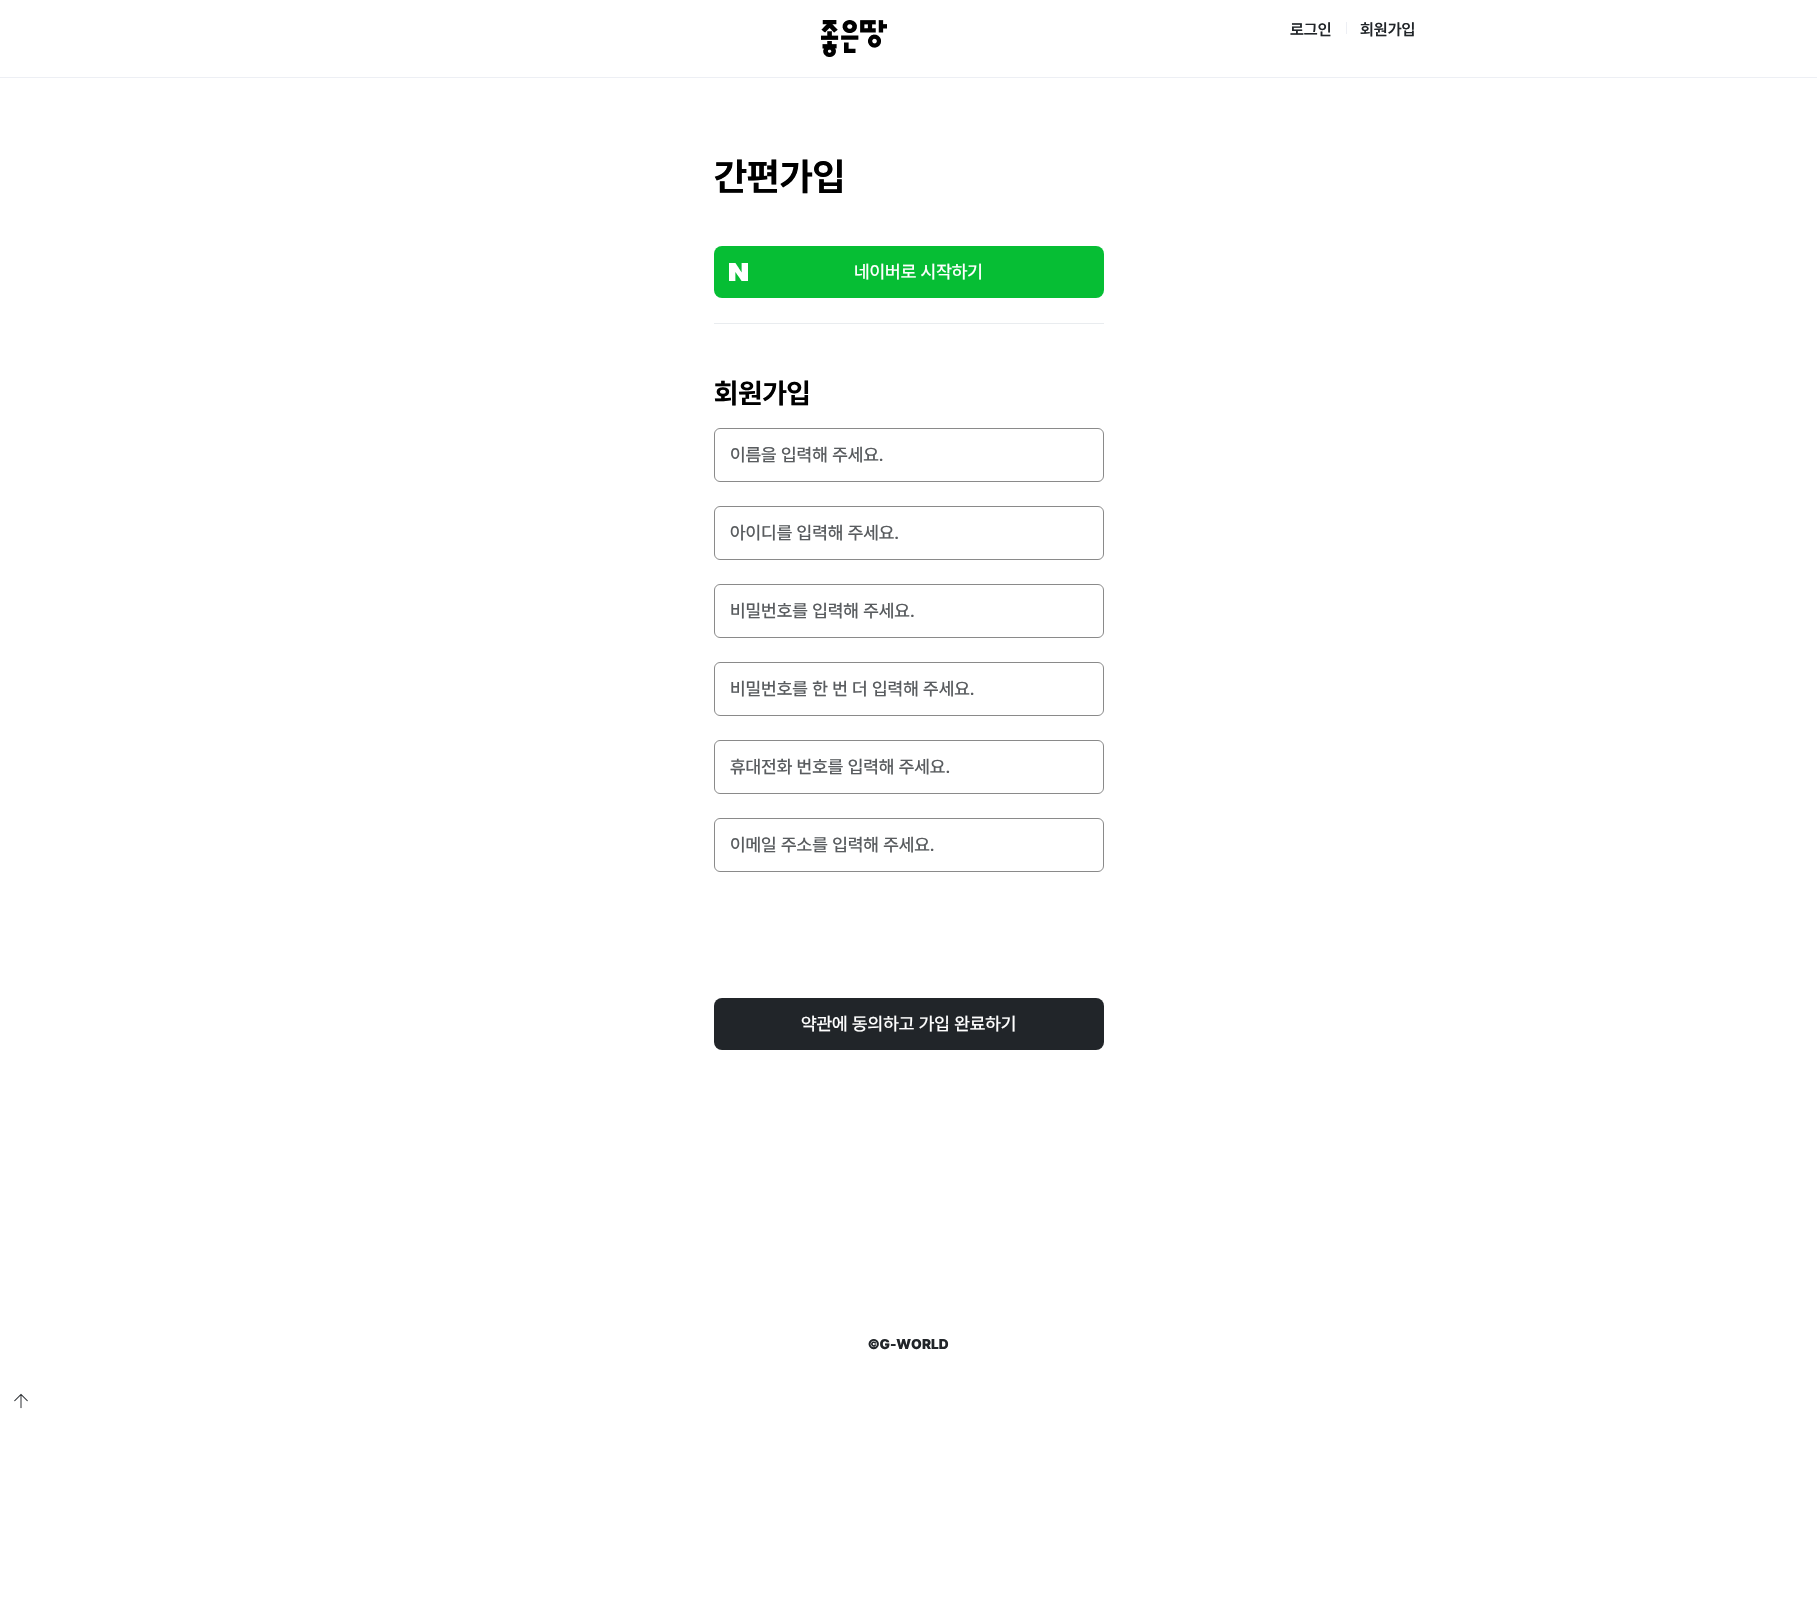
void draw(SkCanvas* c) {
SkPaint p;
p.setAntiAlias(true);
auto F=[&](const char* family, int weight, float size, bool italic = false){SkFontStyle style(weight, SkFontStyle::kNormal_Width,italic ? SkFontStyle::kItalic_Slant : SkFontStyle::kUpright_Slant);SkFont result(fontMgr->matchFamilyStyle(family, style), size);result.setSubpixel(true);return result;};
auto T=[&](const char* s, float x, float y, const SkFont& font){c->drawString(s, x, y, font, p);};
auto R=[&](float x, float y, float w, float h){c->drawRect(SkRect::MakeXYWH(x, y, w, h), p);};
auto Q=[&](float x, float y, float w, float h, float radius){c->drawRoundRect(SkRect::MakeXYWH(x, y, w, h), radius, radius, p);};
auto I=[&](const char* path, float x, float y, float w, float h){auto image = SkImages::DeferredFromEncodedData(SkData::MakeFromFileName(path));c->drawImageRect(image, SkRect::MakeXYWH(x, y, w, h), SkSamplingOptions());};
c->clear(0xffffffff);
p.setColor(0xffedeff4);
R(0,77,1817,1);
I("1.png",821,20,66,37);
auto f1 = F("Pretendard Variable",600,16);
p.setColor(0xff212529);
T("로그인",1290,35,f1);
p.setColor(0xffedeff4);
R(1346,22,1,12);
p.setColor(0xff212529);
T("회원가입",1360,35,f1);
p.setColor(0xffe9ecef);
R(714,323,390,1);
auto f2 = F("Pretendard Variable",700,38);
p.setColor(0xff000000);
T("간편가입",714,190,f2);
p.setColor(0xff06be34);
Q(714,246,390,52,8);
I("2.png",729,263,19,18);
auto f3 = F("Pretendard Variable",500,18);
p.setColor(0xffffffff);
T("네이버로 시작하기",854,278,f3);
auto f4 = F("Pretendard Variable",700,28);
p.setColor(0xff000000);
T("회원가입",714,403,f4);
p.setStroke(true);
p.setStrokeWidth(1);
p.setColor(0xff8a8a8a);
c->drawRoundRect(SkRect::MakeXYWH(714.5,428.5,389,53),5.5,5.5,p);
p.setStroke(false);
p.setColor(0xff595c5f);
T("이름을 입력해 주세요.",730,461,f3);
p.setStroke(true);
p.setColor(0xff8a8a8a);
c->drawRoundRect(SkRect::MakeXYWH(714.5,506.5,389,53),5.5,5.5,p);
p.setStroke(false);
p.setColor(0xff595c5f);
T("아이디를 입력해 주세요.",730,539,f3);
p.setStroke(true);
p.setColor(0xff8a8a8a);
c->drawRoundRect(SkRect::MakeXYWH(714.5,584.5,389,53),5.5,5.5,p);
p.setStroke(false);
p.setColor(0xff595c5f);
T("비밀번호를 입력해 주세요.",730,617,f3);
p.setStroke(true);
p.setColor(0xff8a8a8a);
c->drawRoundRect(SkRect::MakeXYWH(714.5,662.5,389,53),5.5,5.5,p);
p.setStroke(false);
p.setColor(0xff595c5f);
T("비밀번호를 한 번 더 입력해 주세요.",730,695,f3);
p.setStroke(true);
p.setColor(0xff8a8a8a);
c->drawRoundRect(SkRect::MakeXYWH(714.5,740.5,389,53),5.5,5.5,p);
p.setStroke(false);
p.setColor(0xff595c5f);
T("휴대전화 번호를 입력해 주세요.",730,773,f3);
p.setStroke(true);
p.setColor(0xff8a8a8a);
c->drawRoundRect(SkRect::MakeXYWH(714.5,818.5,389,53),5.5,5.5,p);
p.setStroke(false);
p.setColor(0xff595c5f);
T("이메일 주소를 입력해 주세요.",730,851,f3);
p.setColor(0xff212529);
Q(714,998,390,52,8);
p.setColor(0xffffffff);
T("약관에 동의하고 가입 완료하기",801,1030,f3);
auto f5 = F("Pretendard Variable",900,14);
p.setColor(0xff212529);
T("©G-WORLD",868,1349,f5);
I("3.png",14,1393,14,16);
}
